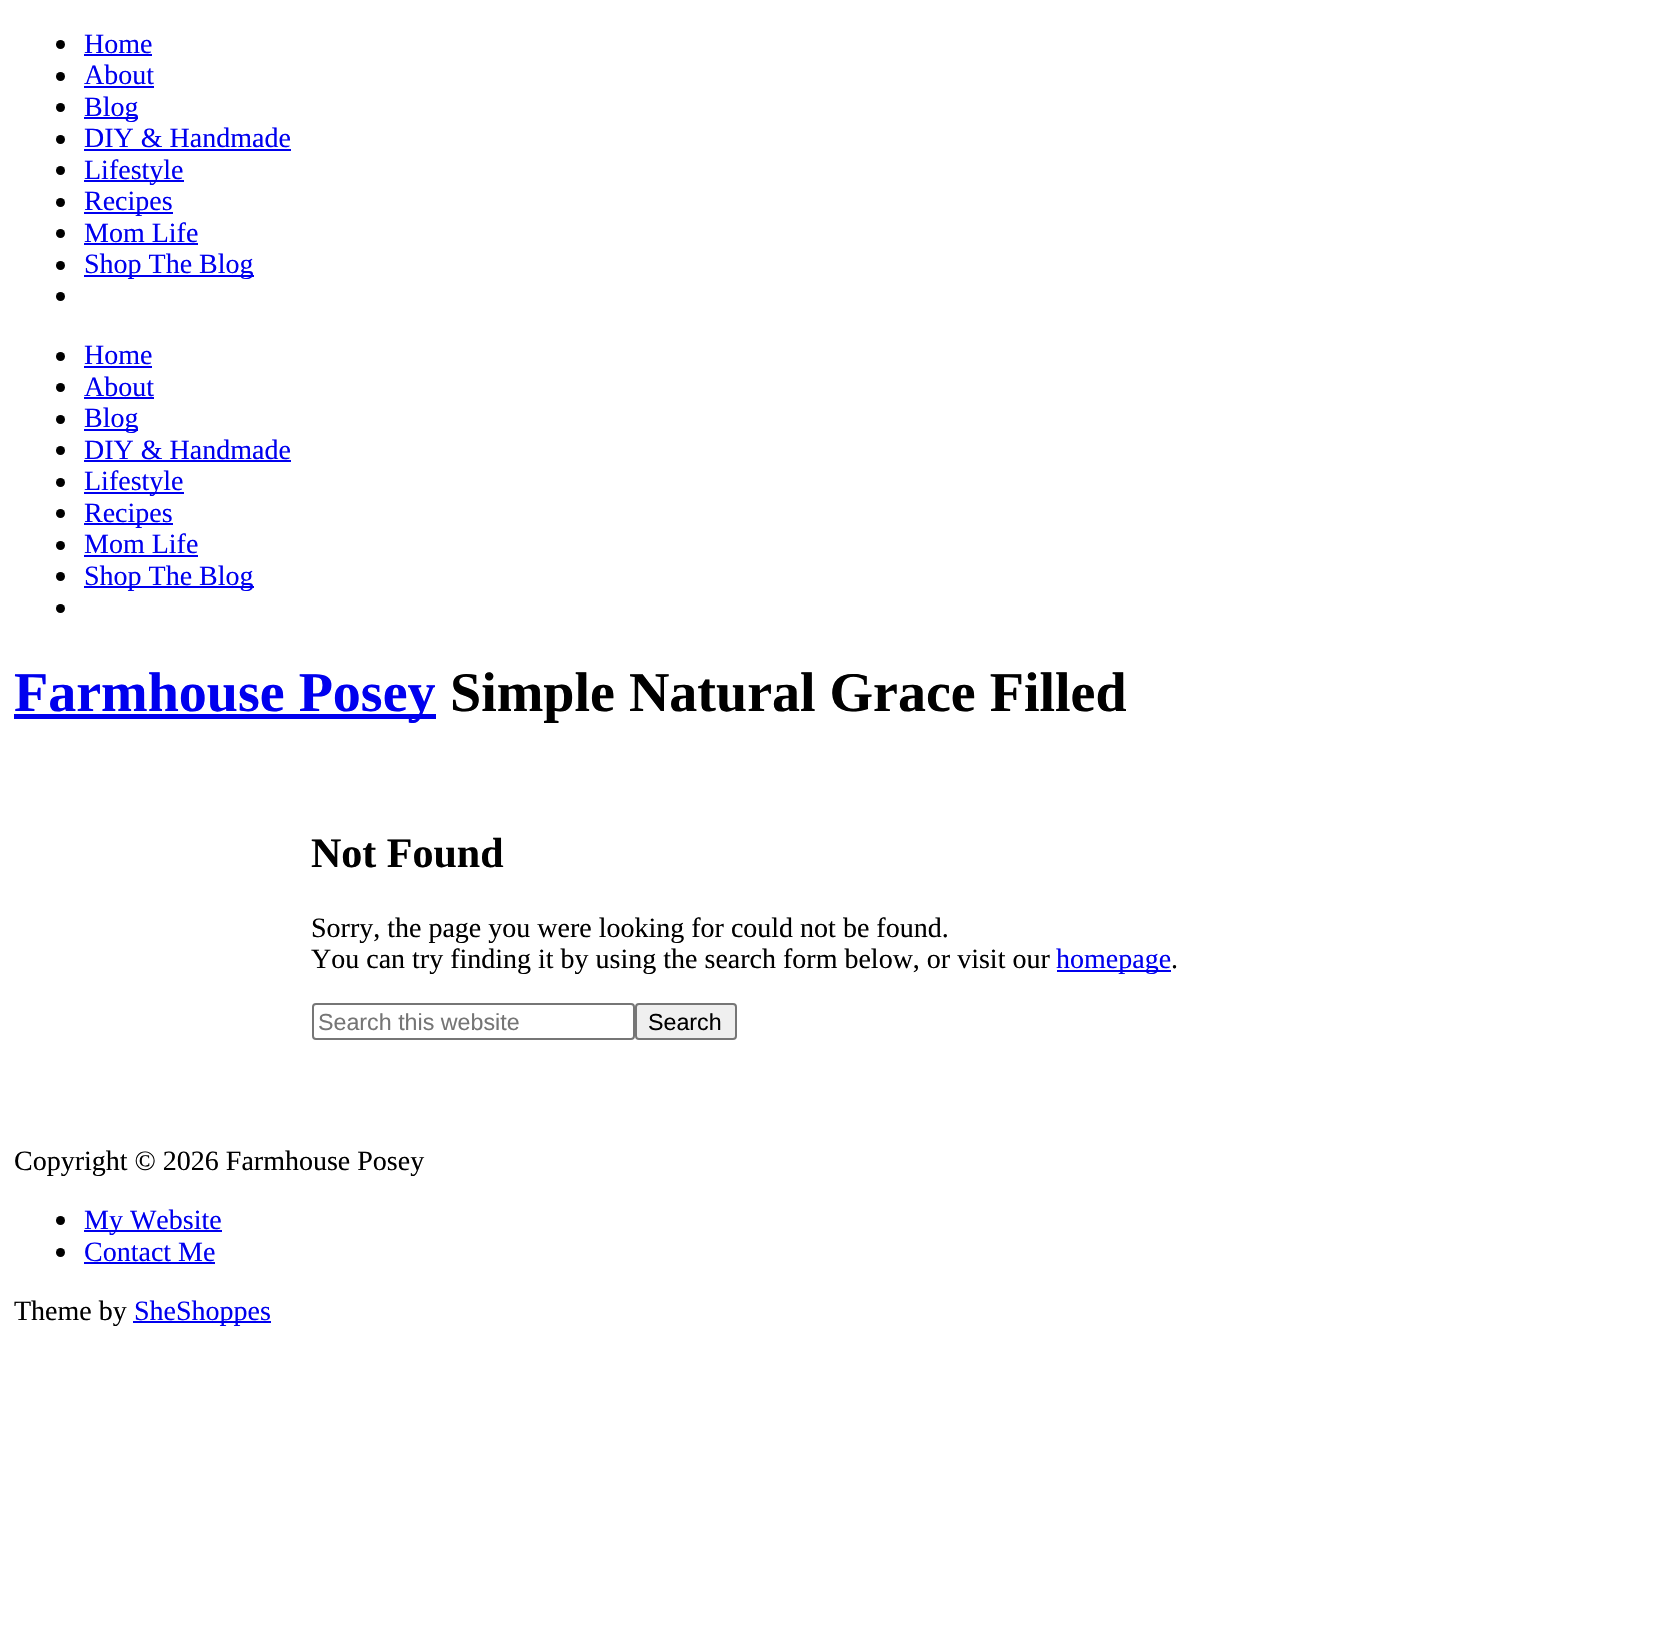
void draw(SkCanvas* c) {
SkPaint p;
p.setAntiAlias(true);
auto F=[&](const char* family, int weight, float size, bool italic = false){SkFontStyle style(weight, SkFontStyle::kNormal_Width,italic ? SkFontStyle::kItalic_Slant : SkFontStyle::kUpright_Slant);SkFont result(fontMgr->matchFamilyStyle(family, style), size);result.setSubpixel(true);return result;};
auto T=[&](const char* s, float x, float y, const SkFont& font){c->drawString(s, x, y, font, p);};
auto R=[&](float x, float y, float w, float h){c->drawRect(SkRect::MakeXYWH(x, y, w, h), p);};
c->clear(0xffffffff);
p.setColor(0xff000000);
c->drawCircle(60.5,44.5,4.5,p);
auto f1 = F("Liberation Serif",400,28);
p.setColor(0xff0000ee);
T("Home",84,53,f1);
R(84,54,68,2);
p.setColor(0xff000000);
c->drawCircle(60.5,76.5,4.5,p);
p.setColor(0xff0000ee);
T("About",84,84,f1);
R(84,86,70,2);
p.setColor(0xff000000);
c->drawCircle(60.5,107.5,4.5,p);
p.setColor(0xff0000ee);
R(84,117,54,2);
T("Blog",84,116,f1);
p.setColor(0xff000000);
c->drawCircle(60.5,139.5,4.5,p);
p.setColor(0xff0000ee);
T("DIY & Handmade",84,147,f1);
R(84,149,207,2);
p.setColor(0xff000000);
c->drawCircle(60.5,170.5,4.5,p);
p.setColor(0xff0000ee);
R(84,180,100,2);
T("Lifestyle",84,179,f1);
p.setColor(0xff000000);
c->drawCircle(60.5,202.5,4.5,p);
p.setColor(0xff0000ee);
R(84,212,89,2);
T("Recipes",84,210,f1);
p.setColor(0xff000000);
c->drawCircle(60.5,233.5,4.5,p);
p.setColor(0xff0000ee);
T("Mom Life",84,242,f1);
R(84,243,114,2);
p.setColor(0xff000000);
c->drawCircle(60.5,265.5,4.5,p);
p.setColor(0xff0000ee);
R(84,275,170,2);
T("Shop The Blog",84,273,f1);
p.setColor(0xff000000);
c->drawCircle(60.5,296.5,4.5,p);
c->drawCircle(60.5,356.5,4.5,p);
p.setColor(0xff0000ee);
T("Home",84,364,f1);
R(84,366,68,2);
p.setColor(0xff000000);
c->drawCircle(60.5,387.5,4.5,p);
p.setColor(0xff0000ee);
T("About",84,396,f1);
R(84,397,70,2);
p.setColor(0xff000000);
c->drawCircle(60.5,419.5,4.5,p);
p.setColor(0xff0000ee);
R(84,429,54,2);
T("Blog",84,427,f1);
p.setColor(0xff000000);
c->drawCircle(60.5,450.5,4.5,p);
p.setColor(0xff0000ee);
T("DIY & Handmade",84,459,f1);
R(84,460,207,2);
p.setColor(0xff000000);
c->drawCircle(60.5,482.5,4.5,p);
p.setColor(0xff0000ee);
R(84,492,100,2);
T("Lifestyle",84,490,f1);
p.setColor(0xff000000);
c->drawCircle(60.5,513.5,4.5,p);
p.setColor(0xff0000ee);
R(84,523,89,2);
T("Recipes",84,522,f1);
p.setColor(0xff000000);
c->drawCircle(60.5,545.5,4.5,p);
p.setColor(0xff0000ee);
T("Mom Life",84,553,f1);
R(84,555,114,2);
p.setColor(0xff000000);
c->drawCircle(60.5,576.5,4.5,p);
p.setColor(0xff0000ee);
R(84,586,170,2);
T("Shop The Blog",84,585,f1);
p.setColor(0xff000000);
c->drawCircle(60.5,608.5,4.5,p);
p.setColor(0xff0000ee);
R(14,714,422,5);
auto f2 = F("Liberation Serif",700,56);
T("Farmhouse Posey",14,711,f2);
p.setColor(0xff000000);
T("Simple Natural Grace Filled",450,711,f2);
auto f3 = F("Liberation Serif",700,42);
T("Not Found",311,867,f3);
T("Sorry, the page you were looking for could not be found.",311,937,f1);
T("You can try finding it by using the search form below, or visit our",311,968,f1);
p.setColor(0xff0000ee);
R(1057,970,114,2);
T("homepage",1056,968,f1);
p.setColor(0xff000000);
T(".",1171,968,f1);
p.setStroke(true);
p.setStrokeWidth(2);
p.setColor(0xff767676);
c->drawRoundRect(SkRect::MakeXYWH(313,1004,321,35),3,3,p);
auto f4 = F("Liberation Sans",400,23.25);
p.setStroke(false);
p.setColor(0xff757575);
T("Search this website",318,1030,f4);
p.setColor(0xffefefef);
c->drawRoundRect(SkRect::MakeXYWH(636,1004,100,35),3,3,p);
p.setStroke(true);
p.setColor(0xff767676);
c->drawRoundRect(SkRect::MakeXYWH(636,1004,100,35),3,3,p);
p.setStroke(false);
p.setColor(0xff000000);
T("Search",648,1030,f4);
T("Copyright © 2026 Farmhouse Posey",14,1170,f1);
c->drawCircle(60.5,1220.5,4.5,p);
p.setColor(0xff0000ee);
R(84,1230,138,2);
T("My Website",84,1229,f1);
p.setColor(0xff000000);
c->drawCircle(60.5,1252.5,4.5,p);
p.setColor(0xff0000ee);
T("Contact Me",84,1261,f1);
R(84,1262,131,2);
p.setColor(0xff000000);
T("Theme by",14,1320,f1);
p.setColor(0xff0000ee);
R(133,1321,138,2);
T("SheShoppes",134,1320,f1);
}
